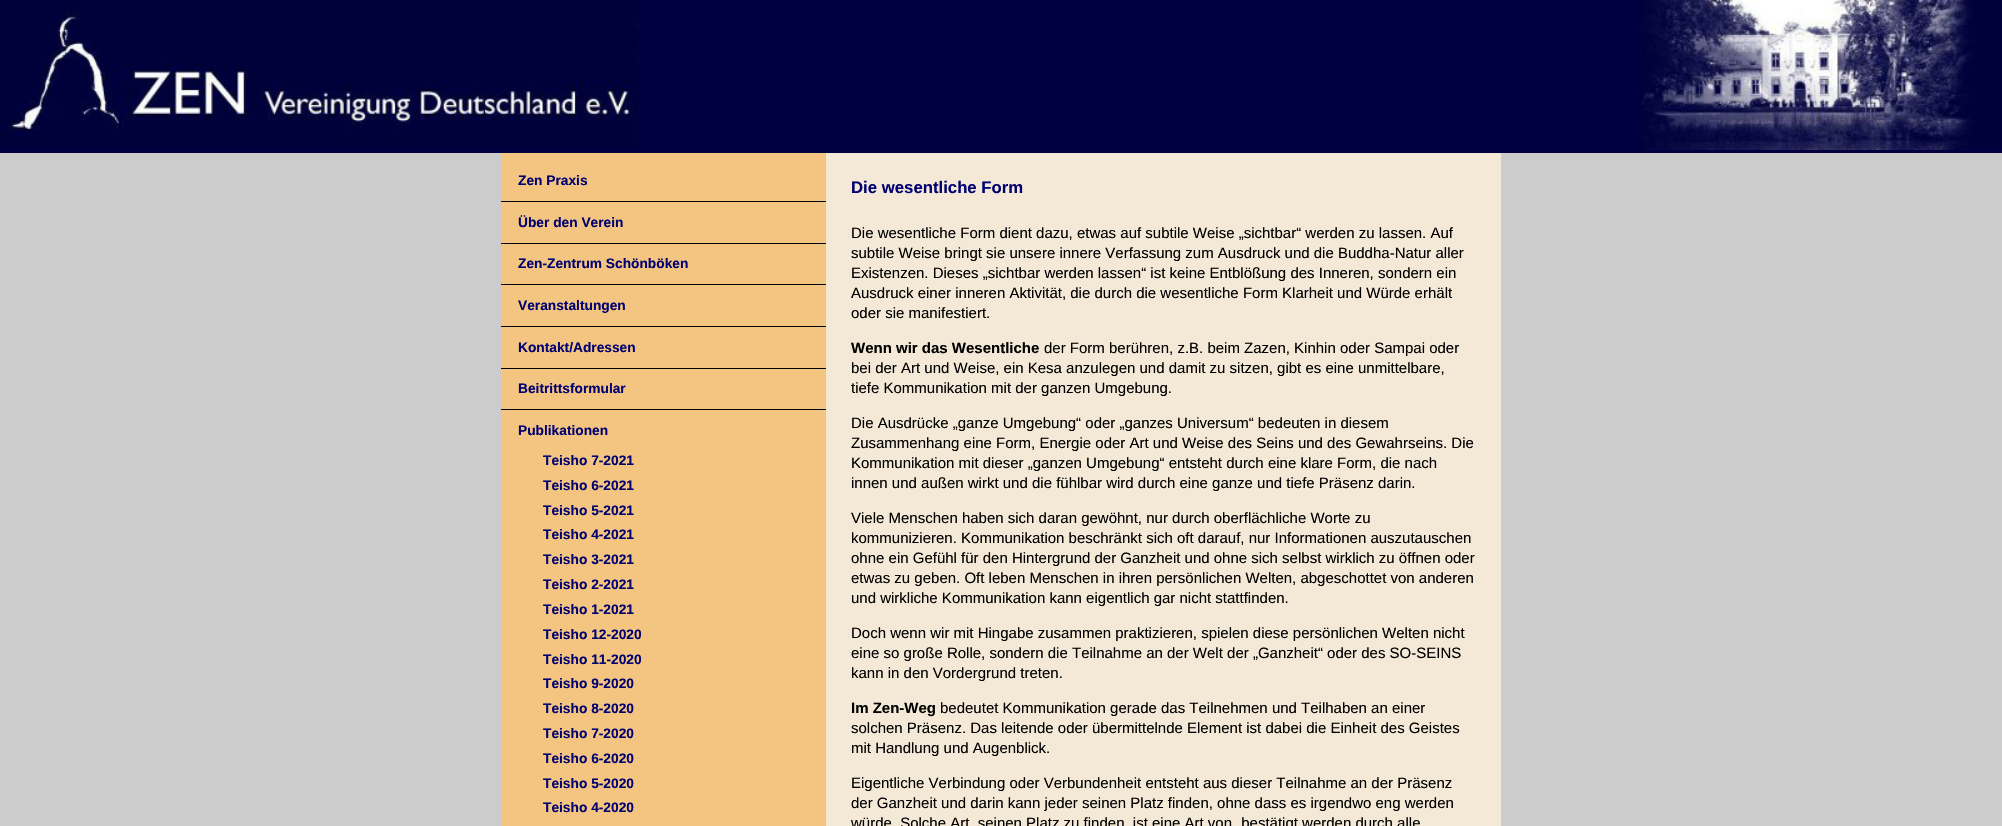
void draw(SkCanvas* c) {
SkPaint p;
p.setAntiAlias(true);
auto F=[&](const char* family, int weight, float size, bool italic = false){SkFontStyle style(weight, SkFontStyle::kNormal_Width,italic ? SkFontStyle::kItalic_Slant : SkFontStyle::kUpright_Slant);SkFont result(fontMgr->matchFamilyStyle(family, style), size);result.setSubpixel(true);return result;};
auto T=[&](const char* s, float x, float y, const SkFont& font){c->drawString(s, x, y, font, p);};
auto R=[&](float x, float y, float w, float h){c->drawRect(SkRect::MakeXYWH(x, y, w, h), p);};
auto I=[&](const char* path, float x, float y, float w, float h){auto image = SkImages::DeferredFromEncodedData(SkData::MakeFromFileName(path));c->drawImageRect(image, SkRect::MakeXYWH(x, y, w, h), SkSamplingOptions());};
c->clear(0xffcccccc);
p.setColor(0xff000040);
R(0,0,2002,153);
I("1.png",0,0,119,146);
I("2.png",122,0,518,147);
I("3.png",1639,0,363,150);
p.setColor(0xfff4c481);
R(501,153,325,673);
auto f1 = F("Liberation Sans",700,13.75);
p.setColor(0xff000070);
T("Zen Praxis",518,185,f1);
p.setColor(0xff000000);
R(501,201,325,1);
p.setColor(0xff000070);
T("Über den Verein",518,227,f1);
p.setColor(0xff000000);
R(501,243,325,1);
p.setColor(0xff000070);
T("Zen-Zentrum Schönböken",518,268,f1);
p.setColor(0xff000000);
R(501,284,325,1);
p.setColor(0xff000070);
T("Veranstaltungen",518,310,f1);
p.setColor(0xff000000);
R(501,326,325,1);
p.setColor(0xff000070);
T("Kontakt/Adressen",518,352,f1);
p.setColor(0xff000000);
R(501,368,325,1);
p.setColor(0xff000070);
T("Beitrittsformular",518,393,f1);
p.setColor(0xff000000);
R(501,409,325,1);
p.setColor(0xff000070);
T("Publikationen",518,435,f1);
T("Teisho 7-2021",543,465,f1);
T("Teisho 6-2021",543,490,f1);
T("Teisho 5-2021",543,515,f1);
T("Teisho 4-2021",543,539,f1);
T("Teisho 3-2021",543,564,f1);
T("Teisho 2-2021",543,589,f1);
T("Teisho 1-2021",543,614,f1);
T("Teisho 12-2020",543,639,f1);
T("Teisho 11-2020",543,664,f1);
T("Teisho 9-2020",543,688,f1);
T("Teisho 8-2020",543,713,f1);
T("Teisho 7-2020",543,738,f1);
T("Teisho 6-2020",543,763,f1);
T("Teisho 5-2020",543,788,f1);
T("Teisho 4-2020",543,812,f1);
p.setColor(0xfff4e9d7);
R(826,153,675,673);
auto f2 = F("Liberation Sans",700,16.75);
p.setColor(0xff000070);
T("Die wesentliche Form",851,193,f2);
auto f3 = F("Liberation Sans",400,15);
p.setColor(0xff000000);
T("Die wesentliche Form dient dazu, etwas auf subtile Weise „sichtbar“ werden zu lassen. Auf",851,238,f3);
T("subtile Weise bringt sie unsere innere Verfassung zum Ausdruck und die Buddha-Natur aller",851,258,f3);
T("Existenzen. Dieses „sichtbar werden lassen“ ist keine Entblößung des Inneren, sondern ein",851,278,f3);
T("Ausdruck einer inneren Aktivität, die durch die wesentliche Form Klarheit und Würde erhält",851,298,f3);
T("oder sie manifestiert.",851,318,f3);
auto f4 = F("Liberation Sans",700,15);
T("Wenn wir das Wesentliche",851,353,f4);
T("der Form berühren, z.B. beim Zazen, Kinhin oder Sampai oder",1044,353,f3);
T("bei der Art und Weise, ein Kesa anzulegen und damit zu sitzen, gibt es eine unmittelbare,",851,373,f3);
T("tiefe Kommunikation mit der ganzen Umgebung.",851,393,f3);
T("Die Ausdrücke „ganze Umgebung“ oder „ganzes Universum“ bedeuten in diesem",851,428,f3);
T("Zusammenhang eine Form, Energie oder Art und Weise des Seins und des Gewahrseins. Die",851,448,f3);
T("Kommunikation mit dieser „ganzen Umgebung“ entsteht durch eine klare Form, die nach",851,468,f3);
T("innen und außen wirkt und die fühlbar wird durch eine ganze und tiefe Präsenz darin.",851,488,f3);
T("Viele Menschen haben sich daran gewöhnt, nur durch oberflächliche Worte zu",851,523,f3);
T("kommunizieren. Kommunikation beschränkt sich oft darauf, nur Informationen auszutauschen",851,543,f3);
T("ohne ein Gefühl für den Hintergrund der Ganzheit und ohne sich selbst wirklich zu öffnen oder",851,563,f3);
T("etwas zu geben. Oft leben Menschen in ihren persönlichen Welten, abgeschottet von anderen",851,583,f3);
T("und wirkliche Kommunikation kann eigentlich gar nicht stattfinden.",851,603,f3);
T("Doch wenn wir mit Hingabe zusammen praktizieren, spielen diese persönlichen Welten nicht",851,638,f3);
T("eine so große Rolle, sondern die Teilnahme an der Welt der „Ganzheit“ oder des SO-SEINS",851,658,f3);
T("kann in den Vordergrund treten.",851,678,f3);
T("Im Zen-Weg",851,713,f4);
T("bedeutet Kommunikation gerade das Teilnehmen und Teilhaben an einer",940,713,f3);
T("solchen Präsenz. Das leitende oder übermittelnde Element ist dabei die Einheit des Geistes",851,733,f3);
T("mit Handlung und Augenblick.",851,753,f3);
T("Eigentliche Verbindung oder Verbundenheit entsteht aus dieser Teilnahme an der Präsenz",851,788,f3);
T("der Ganzheit und darin kann jeder seinen Platz finden, ohne dass es irgendwo eng werden",851,808,f3);
T("würde. Solche Art, seinen Platz zu finden, ist eine Art von „bestätigt werden durch alle",851,828,f3);
}
